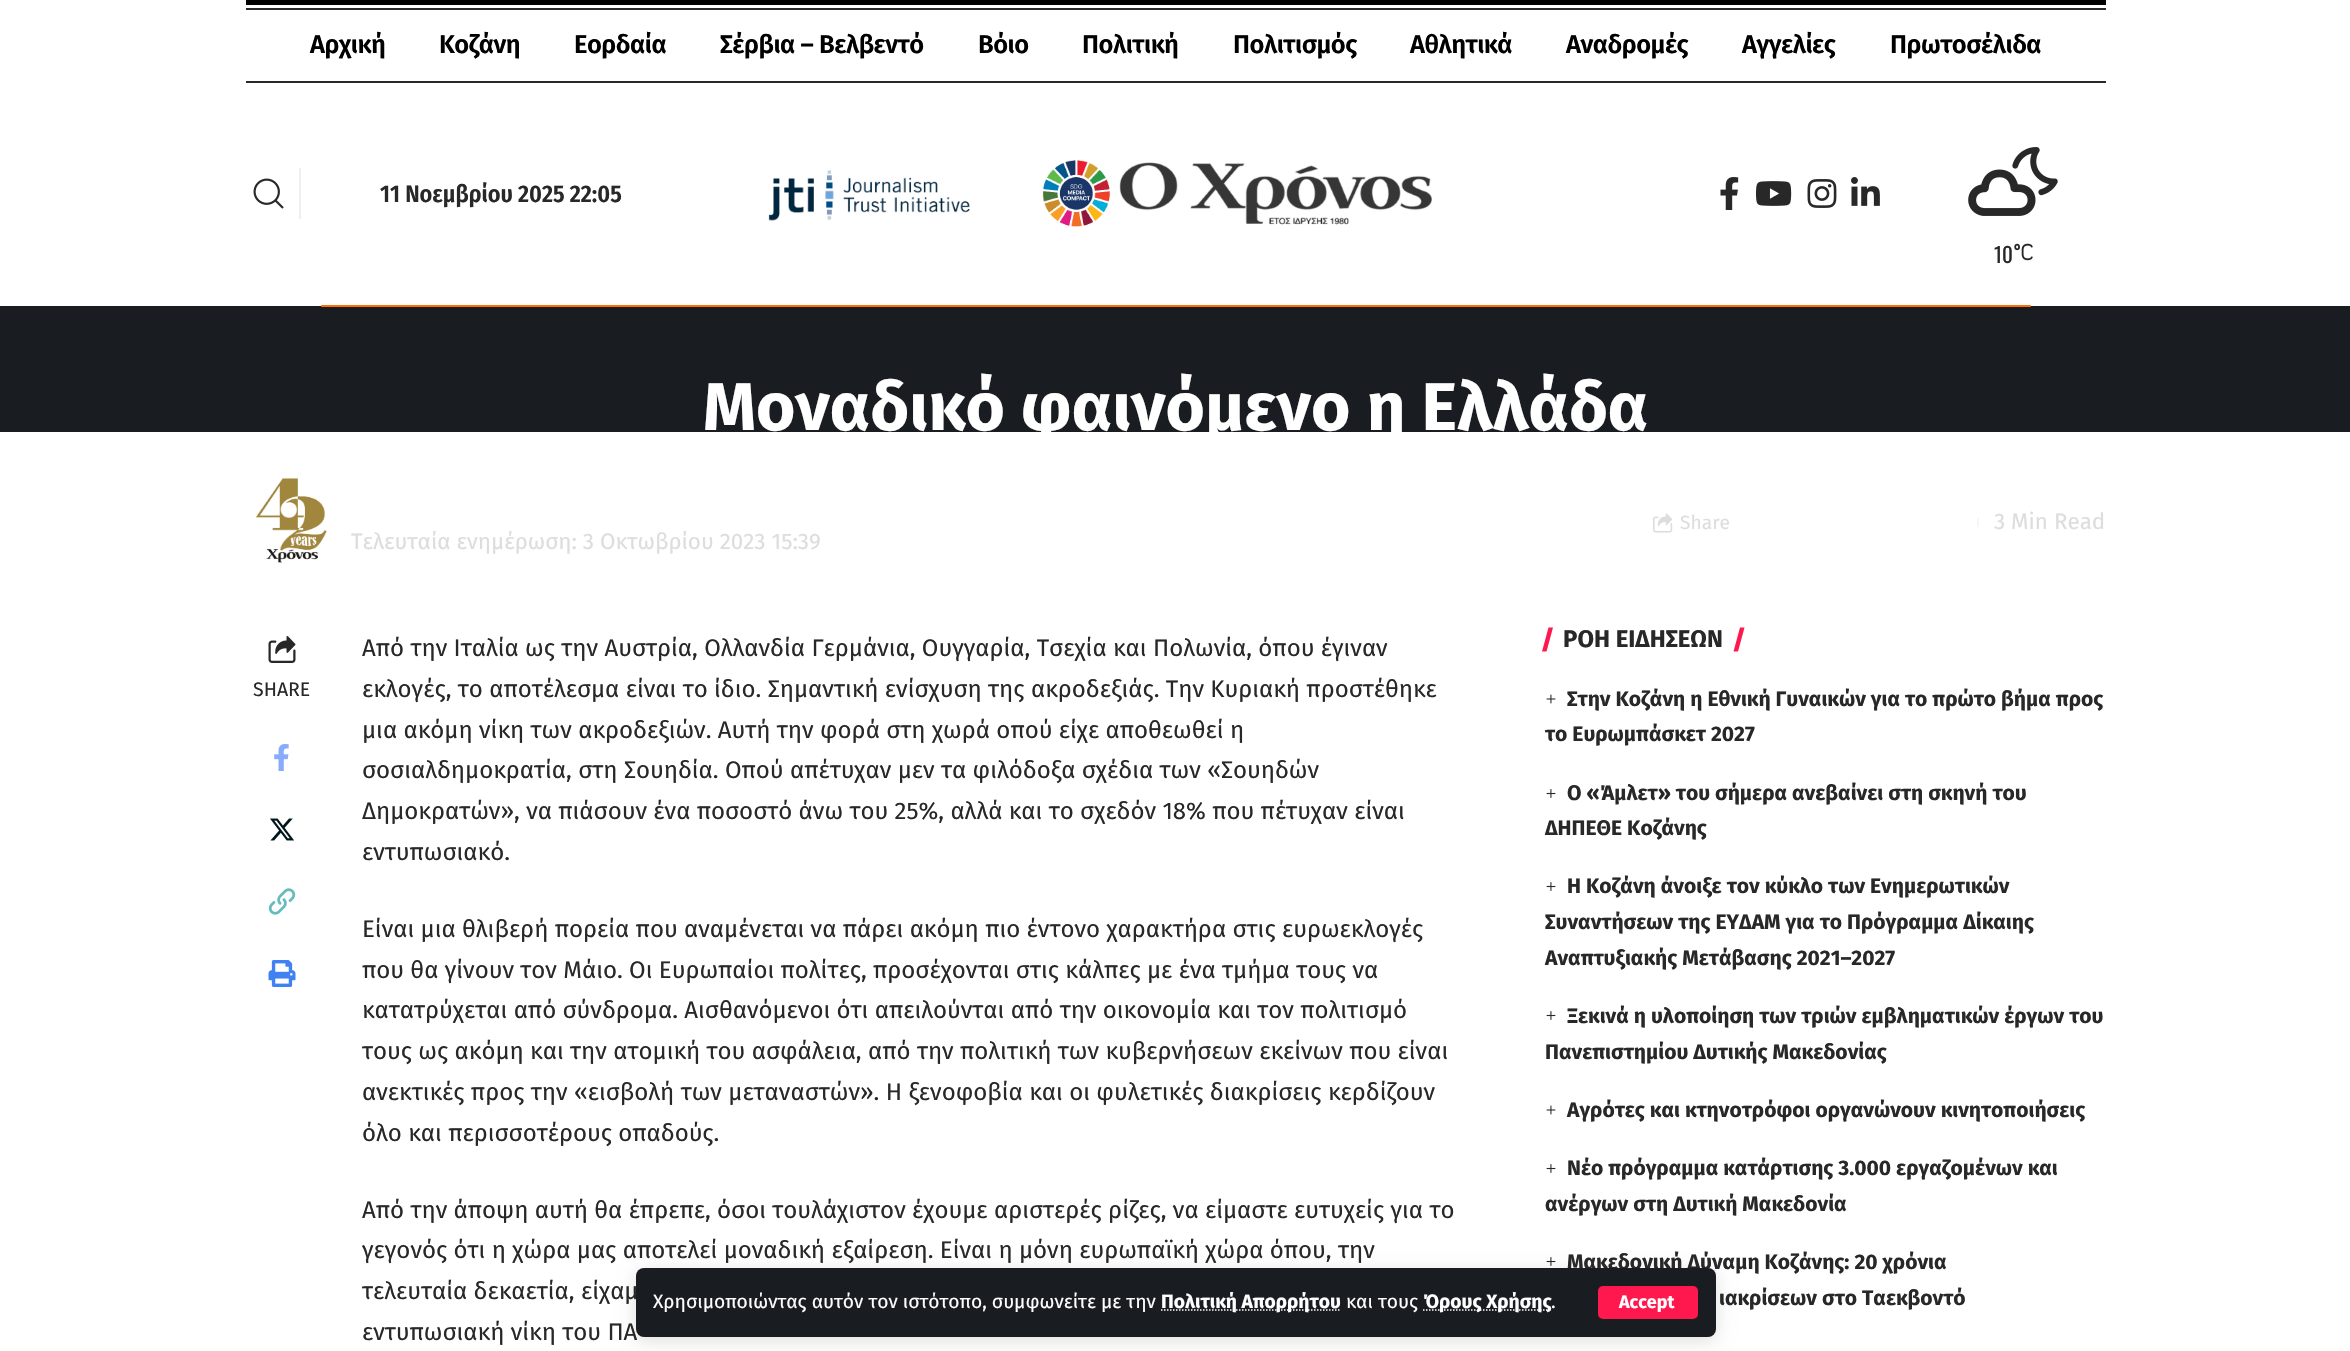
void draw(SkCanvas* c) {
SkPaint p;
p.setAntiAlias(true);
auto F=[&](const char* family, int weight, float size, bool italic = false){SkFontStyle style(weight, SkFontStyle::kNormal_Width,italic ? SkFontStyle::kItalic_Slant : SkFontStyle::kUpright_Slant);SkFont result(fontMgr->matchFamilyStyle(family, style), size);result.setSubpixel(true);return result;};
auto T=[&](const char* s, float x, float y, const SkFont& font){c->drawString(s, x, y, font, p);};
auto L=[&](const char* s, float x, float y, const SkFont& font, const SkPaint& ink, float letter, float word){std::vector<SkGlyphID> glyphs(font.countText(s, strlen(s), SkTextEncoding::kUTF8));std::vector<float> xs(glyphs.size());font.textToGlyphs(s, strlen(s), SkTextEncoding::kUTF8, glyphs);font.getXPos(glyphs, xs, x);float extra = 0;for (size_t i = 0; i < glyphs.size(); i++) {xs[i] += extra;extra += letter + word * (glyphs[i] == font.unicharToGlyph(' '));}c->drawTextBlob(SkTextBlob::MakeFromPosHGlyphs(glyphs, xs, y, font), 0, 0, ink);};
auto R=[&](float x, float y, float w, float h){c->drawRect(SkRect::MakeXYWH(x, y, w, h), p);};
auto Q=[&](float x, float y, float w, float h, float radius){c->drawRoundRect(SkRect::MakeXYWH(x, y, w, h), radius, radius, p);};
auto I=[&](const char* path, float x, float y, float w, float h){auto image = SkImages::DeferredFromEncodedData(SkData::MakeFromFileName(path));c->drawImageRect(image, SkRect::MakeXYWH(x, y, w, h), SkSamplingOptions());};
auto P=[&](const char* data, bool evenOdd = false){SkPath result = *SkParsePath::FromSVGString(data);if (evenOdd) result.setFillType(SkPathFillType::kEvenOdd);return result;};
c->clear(0xffffffff);
p.setColor(0xff000000);
R(246,0,1860,5);
p.setColor(0xff282828);
R(246,8,1860,2);
R(246,81,1860,2);
auto f1 = F("Fira Sans",600,25.5);
p.setColor(0xff000000);
L("Αρχική",310,53,f1,p,-.5,0);
L("Κοζάνη",439,53,f1,p,-.5,0);
L("Εορδαία",574,53,f1,p,-.5,0);
L("Σέρβια – Βελβεντό",720,53,f1,p,-.5,0);
L("Βόιο",978,53,f1,p,-.5,0);
L("Πολιτική",1082,53,f1,p,-.5,0);
L("Πολιτισμός",1233,53,f1,p,-.5,0);
L("Αθλητικά",1410,53,f1,p,-.5,0);
L("Αναδρομές",1566,53,f1,p,-.5,0);
L("Αγγελίες",1742,53,f1,p,-.5,0);
L("Πρωτοσέλιδα",1890,53,f1,p,-.5,0);
p.setColor(0xffefefef);
R(299,168,2,51);
I("1.png",253,178,31,31);
auto f2 = F("Fira Sans Condensed",600,24);
p.setColor(0xff282828);
T("11 Νοεμβρίου 2025 22:05",380,202,f2);
I("2.png",768,170,202,51);
I("3.png",1042,160,390,67);
I("4.png",1720,177,19,33);
I("5.png",1755,181,37,25);
I("6.png",1807,179,30,29);
I("7.png",1851,177,29,29);
I("8.png",1968,147,90,69);
auto f3 = F("Oswald",400,21);
T("10",1994,263,f3);
I("9.png",2014,243,19,18);
p.setColor(0xff191c20);
R(0,306,2350,126);
p.setColor(0xffff6f02);
Q(321,305,1710,2,1);
I("18.png",1546,1257,10,9);
p.setColor(0x1f000000);
p.setMaskFilter(SkMaskFilter::MakeBlur(kNormal_SkBlurStyle, 9));
c->drawRoundRect(SkRect::MakeXYWH(636,1272,1080,69),8,8,p);
p.setMaskFilter(nullptr);
auto f4 = F("Fira Sans",400,24);
p.setColor(0xff282828);
T("τελευταία δεκαετία, είχαμ",362,1299,f4);
T("εντυπωσιακή νίκη του ΠΑ",362,1340,f4);
auto f5 = F("Fira Sans",700,21);
T("Μακεδονική Δύναμη Κοζάνης: 20 χρόνια",1567,1269,f5);
p.setColor(0xff191c20);
Q(636,1268,1080,69,8);
auto f6 = F("Fira Sans",400,19.2);
p.setColor(0xffffffff);
T("Χρησιμοποιώντας αυτόν τον ιστότοπο, συμφωνείτε με την",653,1308,f6);
p.setStroke(true);
p.setStrokeWidth(1.5);
p.setPathEffect(SkDashPathEffect::Make({{1.5f,1.5f}}, 0));
c->drawPath(P("M1161 1310h179.5"),p);
p.setPathEffect(nullptr);
auto f7 = F("Fira Sans",700,19.2);
p.setStroke(false);
T("Πολιτική Απορρήτου",1161,1308,f7);
T("και τους",1346,1308,f6);
p.setStroke(true);
p.setPathEffect(SkDashPathEffect::Make({{1.5f,1.5f}}, 0));
c->drawPath(P("M1423 1310h128.5"),p);
p.setPathEffect(nullptr);
p.setStroke(false);
T("Όρους Χρήσης",1423,1308,f7);
T(".",1551,1308,f6);
p.setColor(0xffff184e);
Q(1598,1286,100,33,5);
auto f8 = F("Fira Sans",700,18);
p.setColor(0xffffffff);
T("Accept",1619,1308,f8);
auto f9 = F("Fira Sans",700,67.5);
T("Μοναδικό φαινόμενο η Ελλάδα",703,430,f9);
I("10.png",1653,513,20,20);
p.setColor(0xffdddddd);
T("Share",1680,529,f6);
p.setColor(0xfff7f7f7);
R(1977,518,2,9);
auto f10 = F("Fira Sans",400,22.4);
p.setColor(0xffdddddd);
T("3 Min Read",1994,529,f10);
I("11.png",255,478,72,85);
T("Τελευταία ενημέρωση: 3 Οκτωβρίου 2023 15:39",351,549,f10);
I("12.png",268,636,28,27);
auto f11 = F("Fira Sans",400,19.5);
p.setColor(0xff282828);
T("SHARE",253,696,f11);
I("13.png",274,744,15,27);
I("14.png",270,818,24,23);
I("15.png",268,888,28,27);
I("16.png",268,960,28,27);
T("Από την Ιταλία ως την Αυστρία, Ολλανδία Γερμάνια, Ουγγαρία, Τσεχία και Πολωνία, όπου έγιναν",362,656,f4);
T("εκλογές, το αποτέλεσμα είναι το ίδιο. Σημαντική ενίσχυση της ακροδεξιάς. Την Κυριακή προστέθηκε",362,697,f4);
T("μια ακόμη νίκη των ακροδεξιών. Αυτή την φορά στη χωρά οπού είχε αποθεωθεί η",362,738,f4);
T("σοσιαλδημοκρατία, στη Σουηδία. Οπού απέτυχαν μεν τα φιλόδοξα σχέδια των «Σουηδών",362,778,f4);
T("Δημοκρατών», να πιάσουν ένα ποσοστό άνω του 25%, αλλά και το σχεδόν 18% που πέτυχαν είναι",362,819,f4);
T("εντυπωσιακό.",362,860,f4);
T("Είναι μια θλιβερή πορεία που αναμένεται να πάρει ακόμη πιο έντονο χαρακτήρα στις ευρωεκλογές",362,937,f4);
T("που θα γίνουν τον Μάιο. Οι Ευρωπαίοι πολίτες, προσέχονται στις κάλπες με ένα τμήμα τους να",362,978,f4);
T("κατατρύχεται από σύνδρομα. Αισθανόμενοι ότι απειλούνται από την οικονομία και τον πολιτισμό",362,1018,f4);
T("τους ως ακόμη και την ατομική του ασφάλεια, από την πολιτική των κυβερνήσεων εκείνων που είναι",362,1059,f4);
T("ανεκτικές προς την «εισβολή των μεταναστών». Η ξενοφοβία και οι φυλετικές διακρίσεις κερδίζουν",362,1100,f4);
T("όλο και περισσοτέρους οπαδούς.",362,1141,f4);
T("Από την άποψη αυτή θα έπρεπε, όσοι τουλάχιστον έχουμε αριστερές ρίζες, να είμαστε ευτυχείς για το",362,1218,f4);
T("γεγονός ότι η χώρα μας αποτελεί μοναδική εξαίρεση. Είναι η μόνη ευρωπαϊκή χώρα όπου, την",362,1258,f4);
p.setColor(0xffff184e);
c->drawPath(P("M1740 627.5h4.5l-6.5 24h-4.5z"),p);
c->drawPath(P("M1548.5 627.5h4.5l-6.5 24h-4.5z"),p);
auto f12 = F("Fira Sans",700,24);
p.setColor(0xff282828);
T("ΡΟΗ ΕΙΔΗΣΕΩΝ",1563,647,f12);
I("17.png",1546,694,10,10);
T("Στην Κοζάνη η Εθνική Γυναικών για το πρώτο βήμα προς",1567,706,f5);
T("το Ευρωμπάσκετ 2027",1545,741,f5);
I("18.png",1546,789,10,9);
T("Ο «Άμλετ» του σήμερα ανεβαίνει στη σκηνή του",1567,800,f5);
T("ΔΗΠΕΘΕ Κοζάνης",1545,835,f5);
I("18.png",1546,882,10,9);
T("Η Κοζάνη άνοιξε τον κύκλο των Ενημερωτικών",1567,893,f5);
T("Συναντήσεων της ΕΥΔΑΜ για το Πρόγραμμα Δίκαιης",1545,929,f5);
T("Αναπτυξιακής Μετάβασης 2021–2027",1545,965,f5);
I("18.png",1546,1011,10,9);
T("Ξεκινά η υλοποίηση των τριών εμβληματικών έργων του",1567,1023,f5);
T("Πανεπιστημίου Δυτικής Μακεδονίας",1545,1059,f5);
I("17.png",1546,1105,10,10);
T("Αγρότες και κτηνοτρόφοι οργανώνουν κινητοποιήσεις",1567,1117,f5);
I("18.png",1546,1164,10,9);
T("Νέο πρόγραμμα κατάρτισης 3.000 εργαζομένων και",1567,1175,f5);
T("ανέργων στη Δυτική Μακεδονία",1545,1211,f5);
T("ιακρίσεων στο Ταεκβοντό",1719,1305,f5);
}
